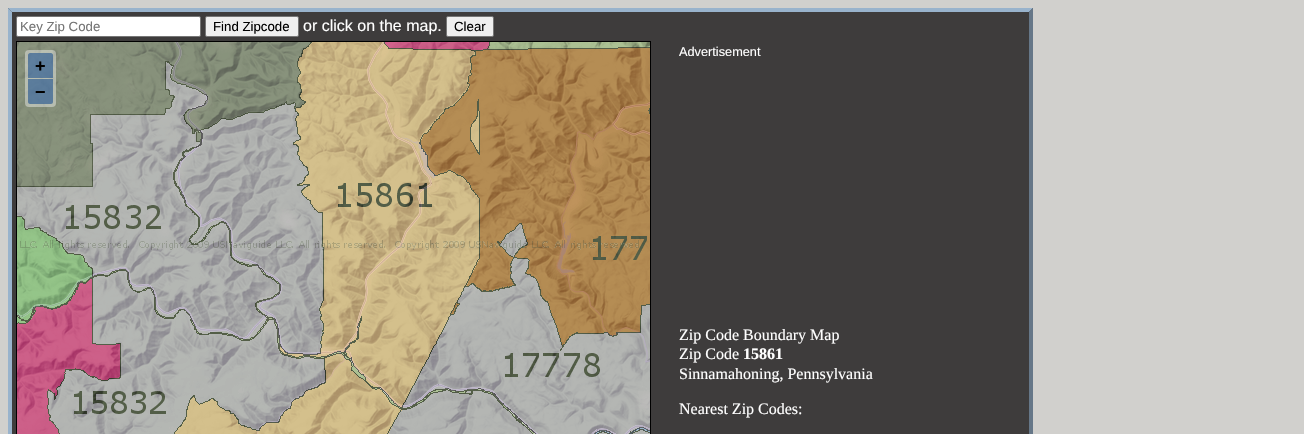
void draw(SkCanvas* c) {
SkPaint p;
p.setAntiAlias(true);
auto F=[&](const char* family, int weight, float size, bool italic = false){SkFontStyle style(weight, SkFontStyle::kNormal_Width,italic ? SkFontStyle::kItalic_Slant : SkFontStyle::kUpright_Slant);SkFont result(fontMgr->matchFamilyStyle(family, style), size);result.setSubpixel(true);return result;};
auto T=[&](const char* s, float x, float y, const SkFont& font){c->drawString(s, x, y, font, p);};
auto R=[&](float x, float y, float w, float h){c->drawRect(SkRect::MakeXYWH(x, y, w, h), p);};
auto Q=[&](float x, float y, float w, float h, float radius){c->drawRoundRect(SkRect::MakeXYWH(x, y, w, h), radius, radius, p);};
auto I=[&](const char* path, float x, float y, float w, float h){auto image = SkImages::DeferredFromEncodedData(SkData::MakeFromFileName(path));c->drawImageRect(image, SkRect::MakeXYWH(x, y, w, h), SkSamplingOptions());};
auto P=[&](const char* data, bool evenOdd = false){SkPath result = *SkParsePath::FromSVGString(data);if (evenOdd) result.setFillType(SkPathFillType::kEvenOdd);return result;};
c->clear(0xffd1d0cd);
p.setColor(0xff3e3c3c);
R(8,8,1025,426);
p.setColor(0xff99b3cc);
c->drawPath(P("M8 8h1025l-4 4h-1017z"),p);
p.setColor(0xff667788);
c->drawPath(P("M1033 8v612l-4-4v-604z"),p);
p.setColor(0xff99b3cc);
c->drawPath(P("M8 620v-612l4 4v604z"),p);
p.setColor(0xffffffff);
c->drawRoundRect(SkRect::MakeXYWH(16.5,16.5,184,20),1.5,1.5,p);
p.setStroke(true);
p.setStrokeWidth(1);
p.setColor(0xff767676);
c->drawRoundRect(SkRect::MakeXYWH(16.5,16.5,184,20),1.5,1.5,p);
auto f1 = F("Liberation Sans",400,13.25);
p.setStroke(false);
p.setColor(0xff757575);
T("Key Zip Code",20,31,f1);
p.setColor(0xffefefef);
c->drawRoundRect(SkRect::MakeXYWH(205.5,16.5,93,20),1.5,1.5,p);
p.setStroke(true);
p.setColor(0xff767676);
c->drawRoundRect(SkRect::MakeXYWH(205.5,16.5,93,20),1.5,1.5,p);
p.setStroke(false);
p.setColor(0xff000000);
T("Find Zipcode",213,31,f1);
auto f2 = F("Liberation Sans",400,16);
p.setColor(0xffffffff);
T("or click on the map.",303,31,f2);
p.setColor(0xffefefef);
c->drawRoundRect(SkRect::MakeXYWH(446.5,16.5,47,20),1.5,1.5,p);
p.setStroke(true);
p.setColor(0xff767676);
c->drawRoundRect(SkRect::MakeXYWH(446.5,16.5,47,20),1.5,1.5,p);
p.setStroke(false);
p.setColor(0xff000000);
T("Clear",454,31,f1);
p.setStroke(true);
c->drawRect(SkRect::MakeXYWH(16.5,41.5,634,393),p);
I("1.png",17,42,633,392);
p.setStroke(false);
p.setColor(0x66ffffff);
Q(25,50,31,57,4);
p.setColor(0x80003c88);
c->drawPath(P("M30 53h21c1 0 2 1 2 2v23h-25v-23c0-1 1-2 2-2z"),p);
auto f3 = F("Liberation Sans",700,18);
p.setColor(0xff000000);
T("+",35,72,f3);
p.setColor(0x80003c88);
c->drawPath(P("M28 79h25v23c0 1-1 2-2 2h-21c-1 0-2-1-2-2z"),p);
p.setColor(0xff000000);
T("−",35,98,f3);
auto f4 = F("Liberation Sans",400,12.75);
p.setColor(0xffffffff);
T("Advertisement",679,56,f4);
auto f5 = F("Liberation Serif",400,16);
T("Zip Code Boundary Map",679,340,f5);
T("Zip Code",679,359,f5);
auto f6 = F("Liberation Serif",700,16);
T("15861",743,359,f6);
T("Sinnamahoning, Pennsylvania",679,379,f5);
T("Nearest Zip Codes:",679,414,f5);
}
